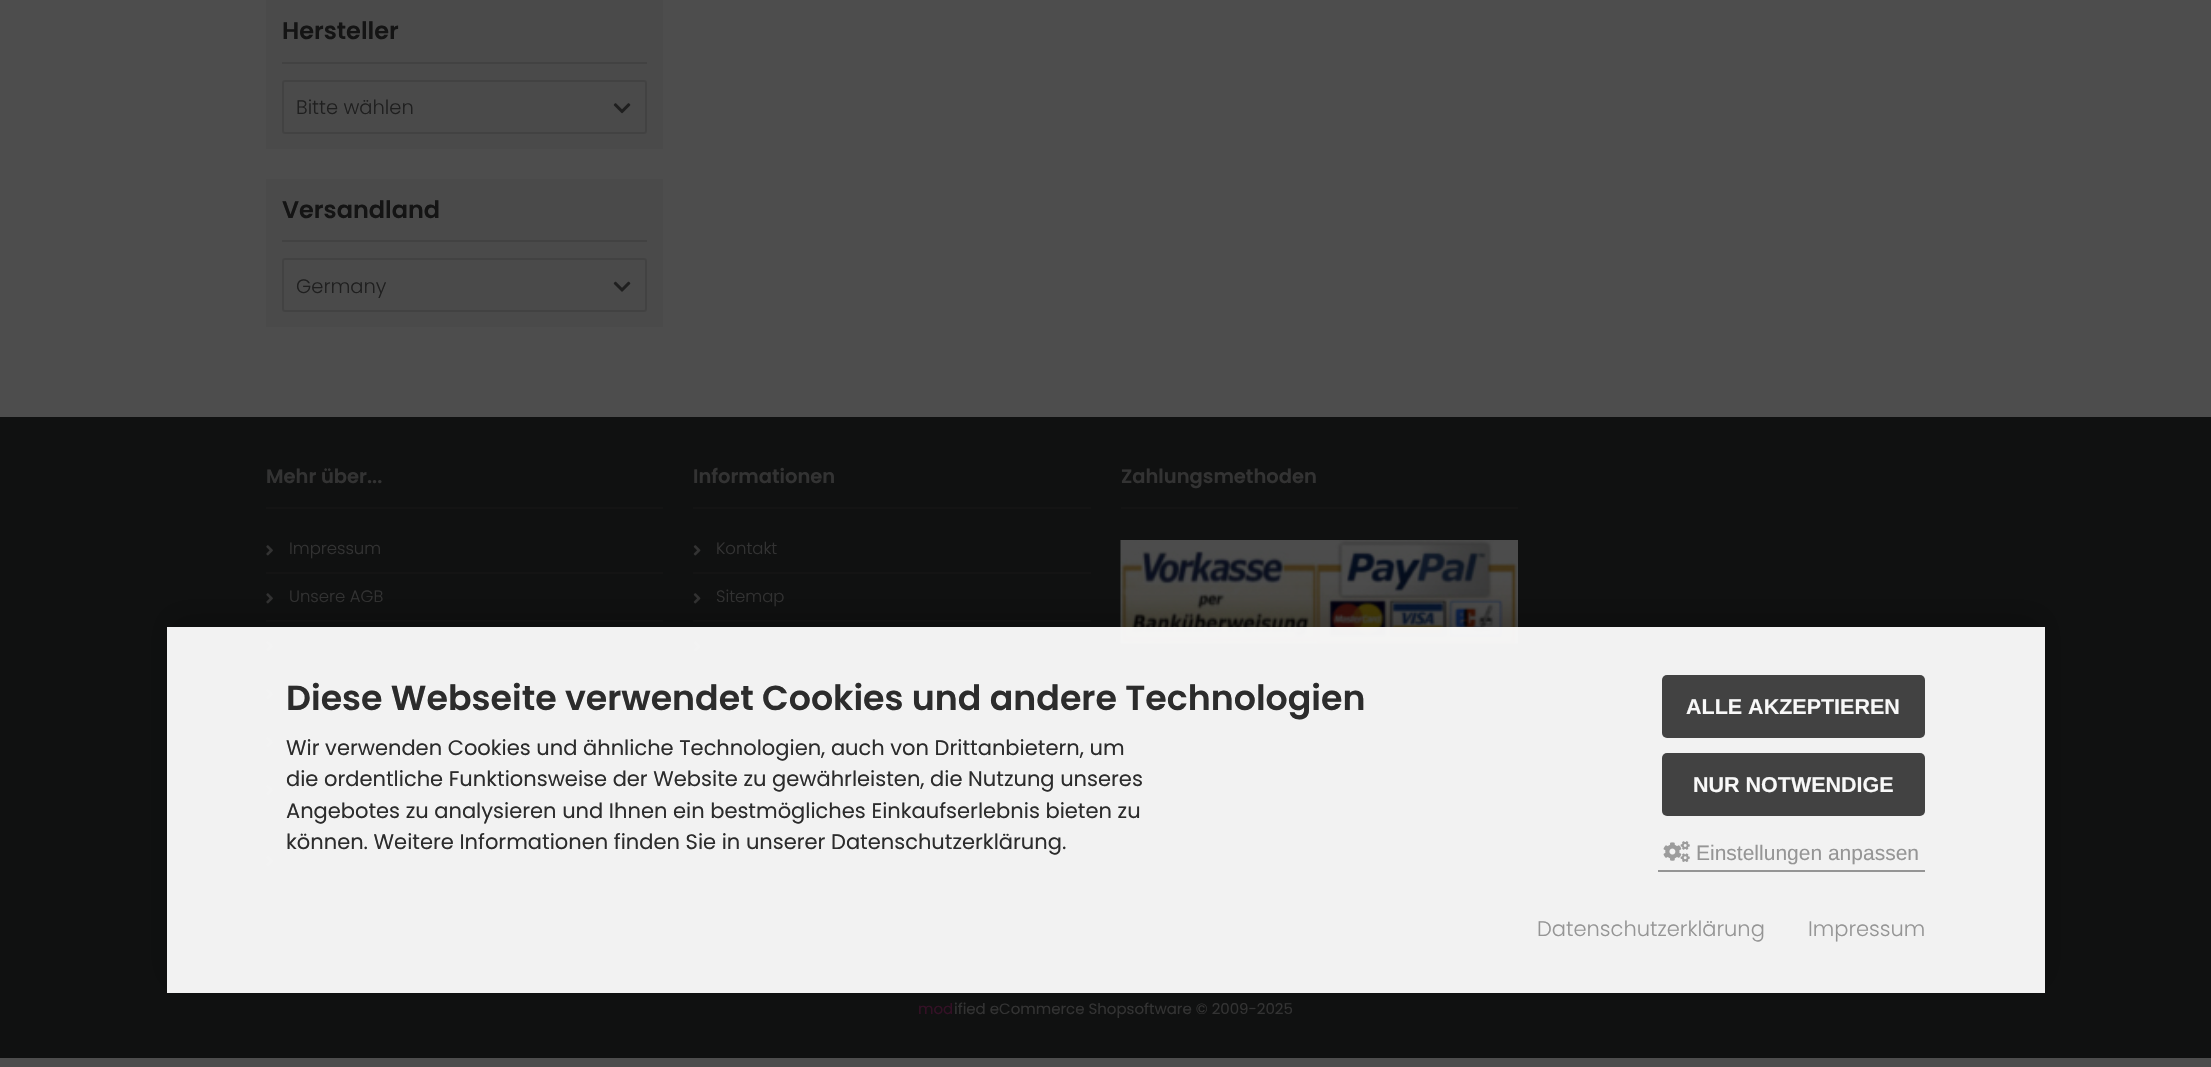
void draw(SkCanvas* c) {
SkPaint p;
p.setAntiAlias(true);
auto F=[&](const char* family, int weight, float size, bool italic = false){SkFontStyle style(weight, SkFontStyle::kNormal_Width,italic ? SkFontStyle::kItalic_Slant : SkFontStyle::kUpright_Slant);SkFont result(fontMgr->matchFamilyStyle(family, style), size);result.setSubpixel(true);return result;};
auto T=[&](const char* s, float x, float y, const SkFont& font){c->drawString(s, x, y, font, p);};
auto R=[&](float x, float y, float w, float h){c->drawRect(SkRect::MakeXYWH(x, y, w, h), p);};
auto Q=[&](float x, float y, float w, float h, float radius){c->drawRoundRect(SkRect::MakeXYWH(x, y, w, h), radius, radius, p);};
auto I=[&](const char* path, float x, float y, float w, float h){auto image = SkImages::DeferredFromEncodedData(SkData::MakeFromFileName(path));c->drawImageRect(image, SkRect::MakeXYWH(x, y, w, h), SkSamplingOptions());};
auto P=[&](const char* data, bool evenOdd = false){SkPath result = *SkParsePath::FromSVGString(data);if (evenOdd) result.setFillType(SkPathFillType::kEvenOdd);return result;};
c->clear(0xff4d4d4d);
p.setColor(0xff4a4a4a);
R(266,0,397,149);
auto f1 = F("Poppins",600,24);
p.setColor(0xff141414);
T("Hersteller",282,39,f1);
p.setColor(0xff424242);
R(282,62,365,2);
p.setStroke(true);
p.setStrokeWidth(2);
c->drawRoundRect(SkRect::MakeXYWH(283,81,363,52),2,2,p);
auto f2 = F("Poppins",300,19.5);
p.setStroke(false);
p.setColor(0xff1f1f1f);
T("Bitte wählen",296,114,f2);
I("1.png",613,103,18,11);
p.setColor(0xff4a4a4a);
R(266,179,397,148);
p.setColor(0xff141414);
T("Versandland",282,218,f1);
p.setColor(0xff424242);
R(282,240,365,2);
p.setStroke(true);
c->drawRoundRect(SkRect::MakeXYWH(283,259,363,52),2,2,p);
p.setStroke(false);
p.setColor(0xff1f1f1f);
T("Germany",296,293,f2);
I("2.png",613,281,18,11);
p.setColor(0xff101111);
R(0,417,2211,641);
auto f3 = F("Poppins",600,19.5);
p.setColor(0xff333333);
T("Mehr über...",266,483,f3);
p.setColor(0xff141414);
R(266,507,397,2);
R(266,572,397,2);
I("3.png",266,545,7,11);
auto f4 = F("Poppins",300,16.5);
p.setColor(0xff333333);
T("Impressum",289,554,f4);
p.setColor(0xff141414);
R(266,620,397,2);
I("3.png",266,593,7,11);
p.setColor(0xff333333);
T("Unsere AGB",289,602,f4);
p.setColor(0xff141414);
R(266,668,397,2);
I("3.png",266,641,7,11);
R(266,716,397,2);
I("3.png",266,689,7,11);
R(266,764,397,2);
I("3.png",266,737,7,11);
R(266,834,397,2);
I("3.png",266,785,7,11);
R(266,882,397,2);
I("4.png",266,855,7,11);
p.setColor(0xff333333);
T("Informationen",693,483,f3);
p.setColor(0xff141414);
R(693,507,398,2);
R(693,572,398,2);
I("5.png",693,545,8,11);
p.setColor(0xff333333);
T("Kontakt",716,554,f4);
p.setColor(0xff141414);
R(693,620,398,2);
I("5.png",693,593,8,11);
p.setColor(0xff333333);
T("Sitemap",716,602,f4);
p.setColor(0xff141414);
R(693,668,398,2);
I("5.png",693,641,8,11);
R(693,716,398,2);
I("5.png",693,689,8,11);
p.setColor(0xff333333);
T("Zahlungsmethoden",1121,483,f3);
p.setColor(0xff141414);
R(1121,507,397,2);
I("6.png",1120,540,398,104);
c->save();
c->clipPath(P("M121 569h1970v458h-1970zm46 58h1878v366h-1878z",true),true);
p.setColor(0x30000000);
p.setMaskFilter(SkMaskFilter::MakeBlur(kNormal_SkBlurStyle, 15));
c->drawRect(SkRect::MakeXYWH(167,615,1878,366),p);
p.setMaskFilter(nullptr);
c->restore();
p.setColor(0xf7f9f9f9);
R(167,627,1878,366);
auto f5 = F("Poppins",600,34.8);
p.setColor(0xff2c2c2c);
T("Diese Webseite verwendet Cookies und andere Technologien",286,710,f5);
auto f6 = F("Poppins",400,21);
T("Wir verwenden Cookies und ähnliche Technologien, auch von Drittanbietern, um",286,755,f6);
T("die ordentliche Funktionsweise der Website zu gewährleisten, die Nutzung unseres",286,786,f6);
T("Angebotes zu analysieren und Ihnen ein bestmögliches Einkaufserlebnis bieten zu",286,818,f6);
T("können. Weitere Informationen finden Sie in unserer Datenschutzerklärung.",286,849,f6);
p.setColor(0xff424242);
Q(1662,675,263,63,5);
auto f7 = F("Liberation Sans",700,21.5);
p.setColor(0xfff8f8f8);
T("ALLE AKZEPTIEREN",1686,714,f7);
p.setColor(0xff424242);
Q(1662,753,263,63,5);
p.setColor(0xfff8f8f8);
T("NUR NOTWENDIGE",1693,792,f7);
p.setColor(0xff959595);
R(1658,870,267,2);
I("7.png",1663,841,27,21);
auto f8 = F("Liberation Sans",400,21);
T("Einstellungen anpassen",1696,860,f8);
auto f9 = F("Poppins",300,21);
T("Datenschutzerklärung",1537,936,f9);
T("Impressum",1808,936,f9);
auto f10 = F("Poppins",400,15);
p.setColor(0xff351026);
T("mod",918,1014,f10);
p.setColor(0xff333333);
T("ified eCommerce Shopsoftware © 2009-2025",954,1014,f10);
}
